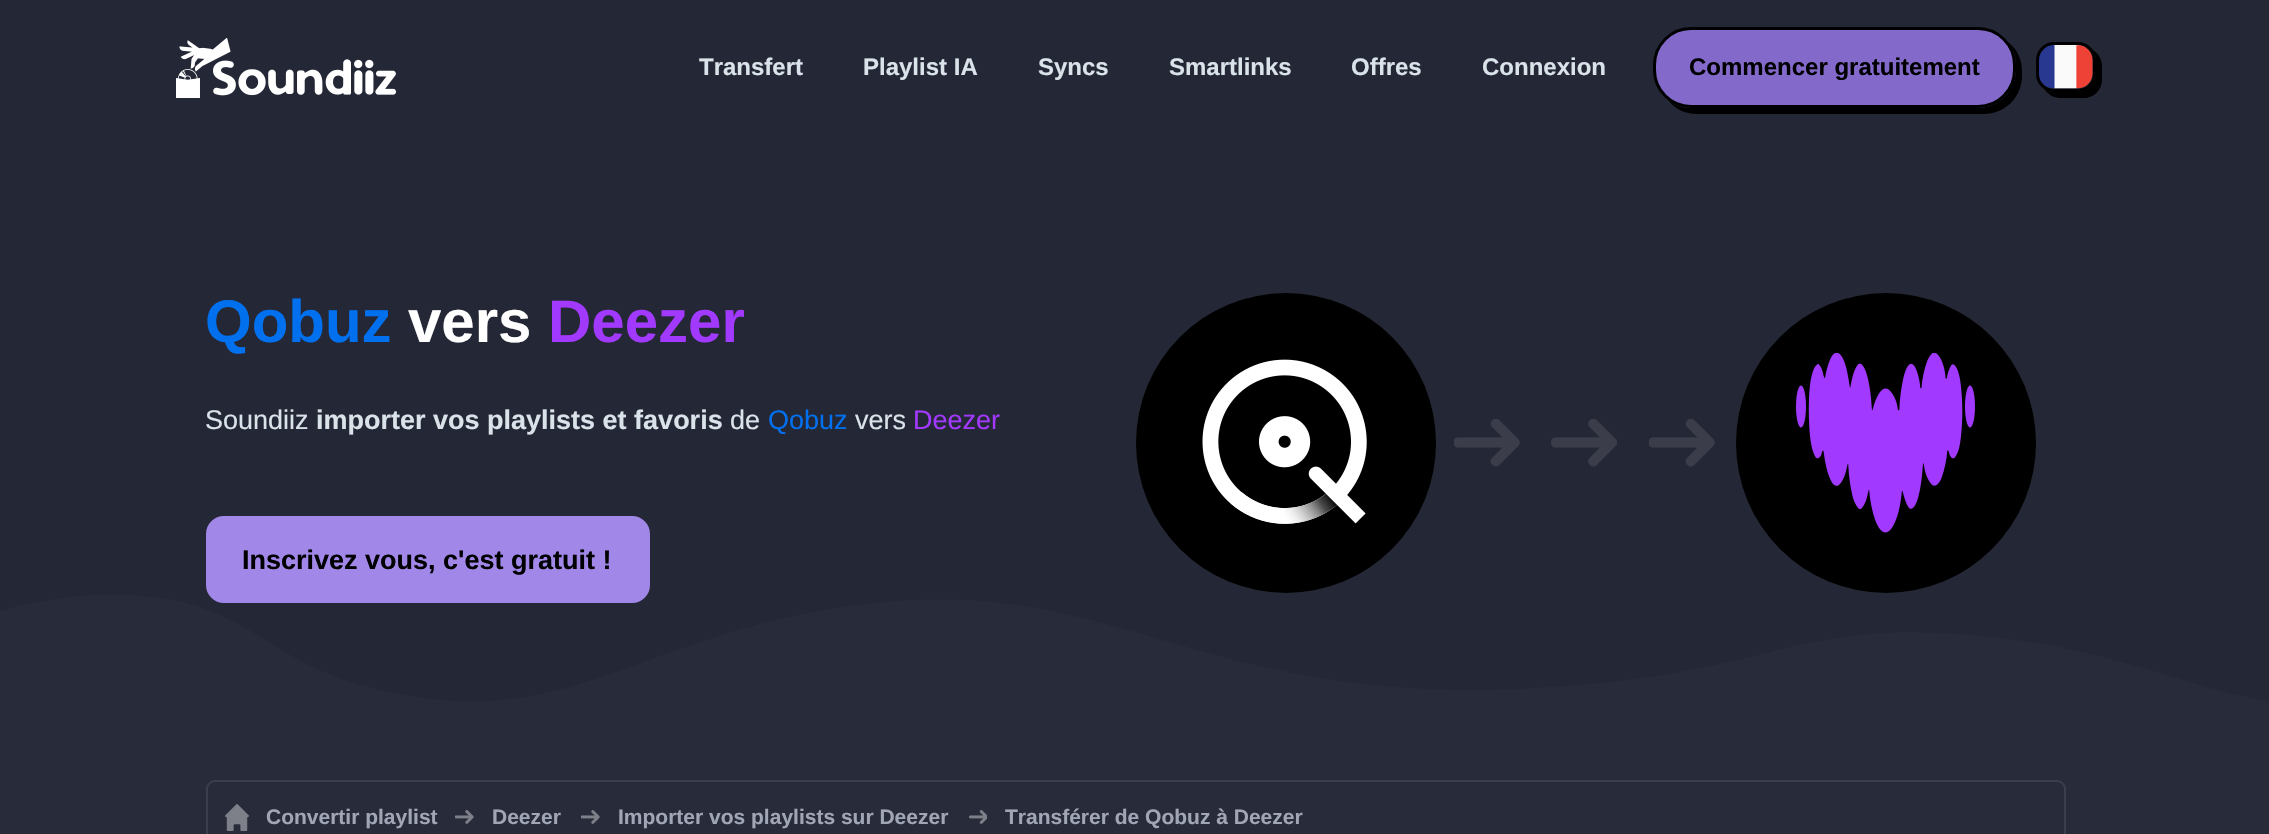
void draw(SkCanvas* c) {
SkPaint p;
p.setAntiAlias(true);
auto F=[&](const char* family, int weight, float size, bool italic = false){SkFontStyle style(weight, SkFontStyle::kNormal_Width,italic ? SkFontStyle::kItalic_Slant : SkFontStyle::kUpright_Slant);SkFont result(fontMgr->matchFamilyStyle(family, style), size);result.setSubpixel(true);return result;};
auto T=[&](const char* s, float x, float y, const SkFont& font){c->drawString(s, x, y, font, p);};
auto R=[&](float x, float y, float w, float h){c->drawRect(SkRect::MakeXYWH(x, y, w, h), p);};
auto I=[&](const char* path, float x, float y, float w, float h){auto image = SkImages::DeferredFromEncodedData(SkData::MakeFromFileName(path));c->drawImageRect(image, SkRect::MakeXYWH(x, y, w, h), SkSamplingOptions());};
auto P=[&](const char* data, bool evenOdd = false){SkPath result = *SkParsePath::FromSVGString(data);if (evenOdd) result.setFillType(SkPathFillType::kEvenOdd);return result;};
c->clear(0xff282b39);
p.setColor(0xff242735);
R(0,0,2269,702);
I("1.png",176,38,220,60);
auto f1 = F("Liberation Sans",700,24);
p.setColor(0xffdae3e9);
T("Transfert",699,75,f1);
T("Playlist IA",863,75,f1);
T("Syncs",1038,75,f1);
T("Smartlinks",1169,75,f1);
T("Offres",1351,75,f1);
T("Connexion",1482,75,f1);
p.setColor(0xff000000);
c->drawPath(P("M1668 100c7 9 17 14 29 14h287c21 0 38-17 38-38v-5c0-12-5-22-14-29c5 6 8 14 8 22v6c0 21-17 38-38 38h-288c-8 0-16-3-22-8z"),p);
p.setColor(0xff8369c9);
c->drawRoundRect(SkRect::MakeXYWH(1654.5,28.5,360,78),36.5,36.5,p);
p.setStroke(true);
p.setStrokeWidth(3);
p.setColor(0xff000000);
c->drawRoundRect(SkRect::MakeXYWH(1654.5,28.5,360,78),36.5,36.5,p);
p.setStroke(false);
T("Commencer gratuitement",1689,75,f1);
c->drawPath(P("M2044 89c4 5 9 9 16 9h24c10 0 18-8 18-18v-14c0-7-4-13-9-16c1 3 3 6 3 10v14c0 9-9 18-18 18h-24c-4 0-7-1-10-3z"),p);
I("2.png",2039,45,54,44);
p.setStroke(true);
c->drawRoundRect(SkRect::MakeXYWH(2037.5,43.5,57,47),16.5,16.5,p);
auto f2 = F("Liberation Sans",700,60);
p.setStroke(false);
p.setColor(0xff0070ef);
T("Qobuz",205,342,f2);
p.setColor(0xffffffff);
T("vers",408,342,f2);
p.setColor(0xffa239ff);
T("Deezer",548,342,f2);
auto f3 = F("Liberation Sans",400,27);
p.setColor(0xffdae3e9);
T("Soundiiz",205,429,f3);
auto f4 = F("Liberation Sans",700,27);
T("importer vos playlists et favoris",316,429,f4);
T("de",730,429,f3);
p.setColor(0xff0070ef);
T("Qobuz",768,429,f3);
p.setColor(0xffdae3e9);
T("vers",855,429,f3);
p.setColor(0xffa239ff);
T("Deezer",913,429,f3);
c->save();
c->clipRect(SkRect::MakeXYWH(0,572,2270,178));
p.setColor(0xff282b39);
c->drawPath(P("M-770 676c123-67 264-111 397-69c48 15 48 26 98 40c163 43 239-58 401-52c134 5 134 76 282 101c156 25 217-44 392-81c317-67 373 106 780 70c203-18 221-64 389-50c201 16 255 90 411 64c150-26 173-105 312-124c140-19 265 43 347 98v77l-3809 1z"),p);
c->restore();
p.setColor(0xffa187e8);
c->drawRoundRect(SkRect::MakeXYWH(207,517,442,85),17,17,p);
p.setStroke(true);
p.setStrokeWidth(2);
c->drawRoundRect(SkRect::MakeXYWH(207,517,442,85),17,17,p);
p.setStroke(false);
p.setColor(0xff000000);
T("Inscrivez vous, c'est gratuit !",242,569,f4);
c->drawCircle(1286,443,150,p);
I("3.png",1202,359,165,165);
c->drawCircle(1886,443,150,p);
I("4.png",1796,353,179,180);
I("5.png",1454,419,66,48);
I("6.png",1551,419,66,48);
I("5.png",1649,419,66,48);
p.setStroke(true);
p.setColor(0xff3a3f50);
c->drawRoundRect(SkRect::MakeXYWH(207,781,1858,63),8,8,p);
I("7.png",225,804,24,27);
auto f5 = F("Liberation Sans",700,21);
p.setStroke(false);
p.setColor(0xffa1a6b6);
T("Convertir playlist",266,824,f5);
I("8.png",455,810,19,14);
T("Deezer",492,824,f5);
I("8.png",581,810,19,14);
T("Importer vos playlists sur Deezer",618,824,f5);
I("9.png",969,810,18,14);
T("Transférer de Qobuz à Deezer",1005,824,f5);
}
